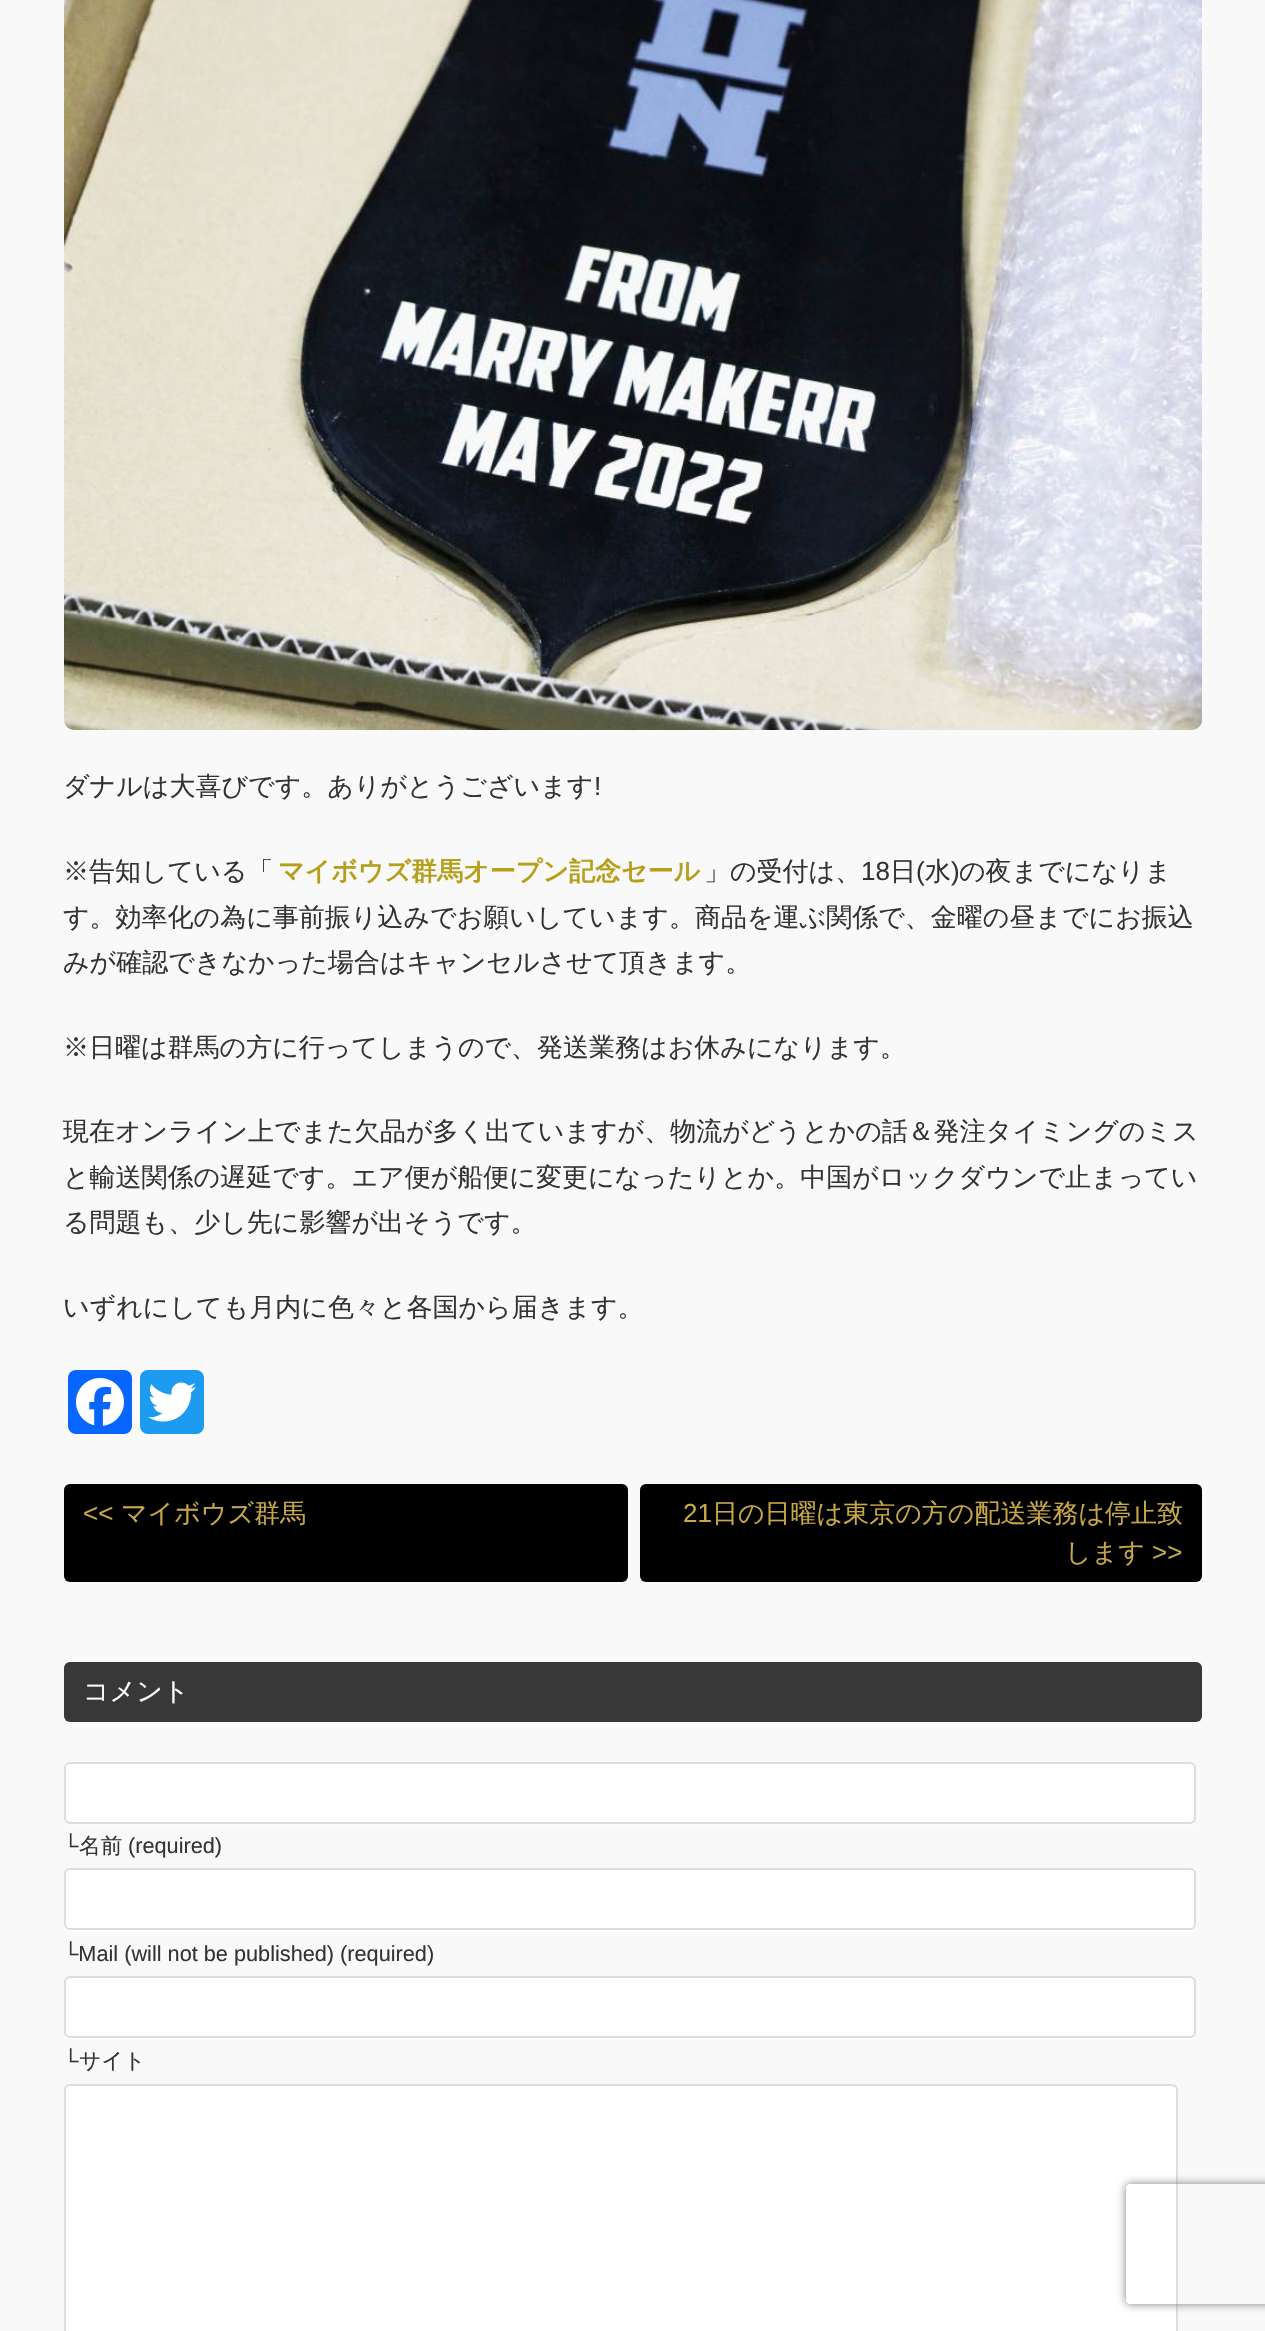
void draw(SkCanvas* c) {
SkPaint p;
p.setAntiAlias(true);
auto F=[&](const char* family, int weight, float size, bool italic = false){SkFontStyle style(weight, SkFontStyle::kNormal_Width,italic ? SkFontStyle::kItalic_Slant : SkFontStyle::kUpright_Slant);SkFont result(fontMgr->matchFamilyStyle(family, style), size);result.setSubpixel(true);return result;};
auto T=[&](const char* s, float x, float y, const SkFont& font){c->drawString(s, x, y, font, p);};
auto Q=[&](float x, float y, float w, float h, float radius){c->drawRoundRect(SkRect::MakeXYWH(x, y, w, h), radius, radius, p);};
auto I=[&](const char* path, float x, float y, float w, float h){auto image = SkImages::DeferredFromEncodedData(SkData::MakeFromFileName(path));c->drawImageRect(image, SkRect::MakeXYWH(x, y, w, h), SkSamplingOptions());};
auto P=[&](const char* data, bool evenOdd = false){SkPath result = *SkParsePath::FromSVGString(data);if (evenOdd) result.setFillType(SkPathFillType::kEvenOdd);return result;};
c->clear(0xfff9f9f9);
I("1.png",64,0,1138,730);
auto f1 = F("WenQuanYi Zen Hei",500,26);
p.setColor(0xff333333);
T("ダナルは大喜びです。ありがとうございます",63,795,f1);
auto f2 = F("Liberation Sans",400,26);
T("!",594,795,f2);
T("※告知している「",63,880,f1);
auto f3 = F("WenQuanYi Zen Hei",700,26);
p.setColor(0xffb69f1a);
T("マイボウズ群馬オープン記念セール",278,880,f3);
p.setColor(0xff333333);
T("」の受付は、",704,880,f1);
T("18",861,880,f2);
T("日",890,880,f1);
T("(",916,880,f2);
T("水",925,880,f1);
T(")",951,880,f2);
T("の夜までになりま",959,880,f1);
T("す。効率化の為に事前振り込みでお願いしています。商品を運ぶ関係で、金曜の昼までにお振込",63,926,f1);
T("みが確認できなかった場合はキャンセルさせて頂きます。",63,971,f1);
T("※日曜は群馬の方に行ってしまうので、発送業務はお休みになります。",63,1056,f1);
T("現在オンライン上でまた欠品が多く出ていますが、物流がどうとかの話＆発注タイミングのミス",63,1140,f1);
T("と輸送関係の遅延です。エア便が船便に変更になったりとか。中国がロックダウンで止まってい",63,1186,f1);
T("る問題も、少し先に影響が出そうです。",63,1231,f1);
T("いずれにしても月内に色々と各国から届きます。",63,1316,f1);
p.setColor(0xff0866ff);
Q(68,1370,64,64,8);
I("2.png",76,1378,48,48);
p.setColor(0xff1d9bf0);
Q(140,1370,64,64,8);
I("3.png",148,1382,48,40);
p.setColor(0xff000000);
Q(64,1484,564,98,6);
p.setColor(0xffc7a849);
T("<<",83,1522,f2);
T("マイボウズ群馬",121,1522,f1);
p.setColor(0xff000000);
Q(640,1484,562,98,6);
p.setColor(0xffc7a849);
T("21",683,1522,f2);
T("日の日曜は東京の方の配送業務は停止致",712,1522,f1);
T("します",1065,1561,f1);
T(">>",1152,1561,f2);
p.setColor(0xff383838);
Q(64,1662,1138,60,6);
p.setColor(0xffffffff);
T("コメント",83,1700,f1);
p.setColor(0xfffcfcfc);
c->drawPath(P("M64 1818v2c0 3 3 6 6 6h1120c3 0 6-3 6-6v-2c0 3-3 6-6 6h-1120c-3 0-6-3-6-6z"),p);
p.setColor(0xffffffff);
c->drawRoundRect(SkRect::MakeXYWH(65,1763,1130,60),5,5,p);
p.setStroke(true);
p.setStrokeWidth(2);
p.setColor(0xffdddddd);
c->drawRoundRect(SkRect::MakeXYWH(65,1763,1130,60),5,5,p);
auto f4 = F("Liberation Sans",400,21.7);
p.setStroke(false);
p.setColor(0xff333333);
T("└",63,1853,f4);
auto f5 = F("WenQuanYi Zen Hei",500,21.7);
T("名前",79,1853,f5);
T("(required)",128,1853,f4);
p.setColor(0xfffcfcfc);
c->drawPath(P("M64 1924v2c0 3 3 6 6 6h1120c3 0 6-3 6-6v-2c0 3-3 6-6 6h-1120c-3 0-6-3-6-6z"),p);
p.setColor(0xffffffff);
c->drawRoundRect(SkRect::MakeXYWH(65,1869,1130,60),5,5,p);
p.setStroke(true);
p.setColor(0xffdddddd);
c->drawRoundRect(SkRect::MakeXYWH(65,1869,1130,60),5,5,p);
p.setStroke(false);
p.setColor(0xff333333);
T("└Mail (will not be published) (required)",63,1961,f4);
p.setColor(0xfffcfcfc);
c->drawPath(P("M64 2032v2c0 3 3 6 6 6h1120c3 0 6-3 6-6v-2c0 3-3 6-6 6h-1120c-3 0-6-3-6-6z"),p);
p.setColor(0xffffffff);
c->drawRoundRect(SkRect::MakeXYWH(65,1977,1130,60),5,5,p);
p.setStroke(true);
p.setColor(0xffdddddd);
c->drawRoundRect(SkRect::MakeXYWH(65,1977,1130,60),5,5,p);
p.setStroke(false);
p.setColor(0xff333333);
T("└",63,2068,f4);
T("サイト",79,2068,f5);
p.setColor(0xffffffff);
c->drawRoundRect(SkRect::MakeXYWH(65,2085,1112,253),5,5,p);
p.setStroke(true);
p.setColor(0xffdddddd);
c->drawRoundRect(SkRect::MakeXYWH(65,2085,1112,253),5,5,p);
c->save();
c->clipPath(P("M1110 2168h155v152h-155zm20 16h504c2 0 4 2 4 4v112c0 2-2 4-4 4h-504c-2 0-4-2-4-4v-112c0-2 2-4 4-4z",true),true);
p.setStroke(false);
p.setColor(0xff808080);
p.setMaskFilter(SkMaskFilter::MakeBlur(kNormal_SkBlurStyle, 5));
c->drawRoundRect(SkRect::MakeXYWH(1126,2184,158,120),4,4,p);
p.setMaskFilter(nullptr);
c->restore();
}
